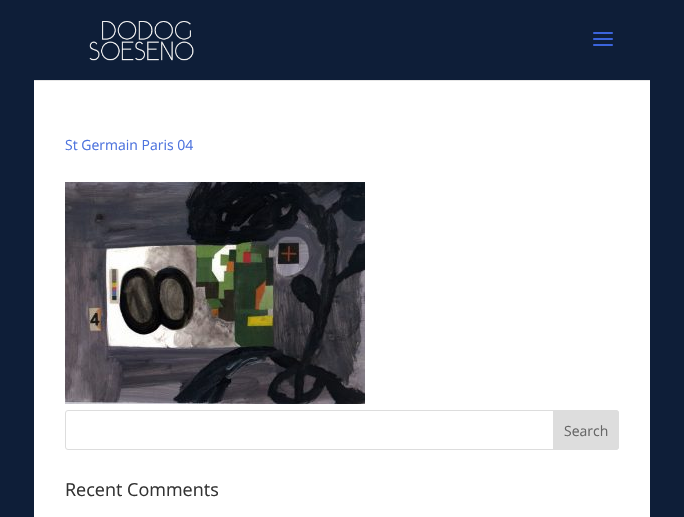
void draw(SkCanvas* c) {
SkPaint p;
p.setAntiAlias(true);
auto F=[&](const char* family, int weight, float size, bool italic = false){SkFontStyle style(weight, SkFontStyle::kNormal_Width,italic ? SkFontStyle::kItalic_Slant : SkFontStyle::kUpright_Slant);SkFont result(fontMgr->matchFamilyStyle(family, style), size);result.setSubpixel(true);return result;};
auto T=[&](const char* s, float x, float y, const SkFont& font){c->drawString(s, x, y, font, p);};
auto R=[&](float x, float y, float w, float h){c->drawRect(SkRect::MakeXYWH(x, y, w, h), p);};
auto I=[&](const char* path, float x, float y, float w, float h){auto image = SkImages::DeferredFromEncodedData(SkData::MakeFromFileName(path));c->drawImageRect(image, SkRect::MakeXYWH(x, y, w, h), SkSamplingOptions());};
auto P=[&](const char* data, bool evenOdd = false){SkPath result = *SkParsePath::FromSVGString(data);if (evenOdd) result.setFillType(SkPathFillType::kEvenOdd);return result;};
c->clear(0xff0e1e38);
p.setColor(0xffe6e6e6);
R(34,80,616,1);
I("1.png",89,21,105,40);
I("2.png",593,32,20,14);
p.setColor(0xffffffff);
R(34,81,616,436);
auto f1 = F("Open Sans",400,14);
p.setColor(0xff4d73de);
T("St Germain Paris 04",65,150,f1);
I("3.png",65,182,300,222);
p.setStroke(true);
p.setStrokeWidth(1);
p.setColor(0xffdddddd);
c->drawRoundRect(SkRect::MakeXYWH(65.5,410.5,553,39),2.5,2.5,p);
p.setStroke(false);
c->drawPath(P("M553.5 410.5h62.5c1.5 0 2.5 1 2.5 2.5v34c0 1.5-1 2.5-2.5 2.5h-62.5z"),p);
p.setStroke(true);
c->drawPath(P("M553.5 410.5h62.5c1.5 0 2.5 1 2.5 2.5v34c0 1.5-1 2.5-2.5 2.5h-62.5z"),p);
p.setStroke(false);
p.setColor(0xff666666);
T("Search",564,436,f1);
auto f2 = F("Open Sans",400,18);
p.setColor(0xff333333);
T("Recent Comments",65,496,f2);
}
